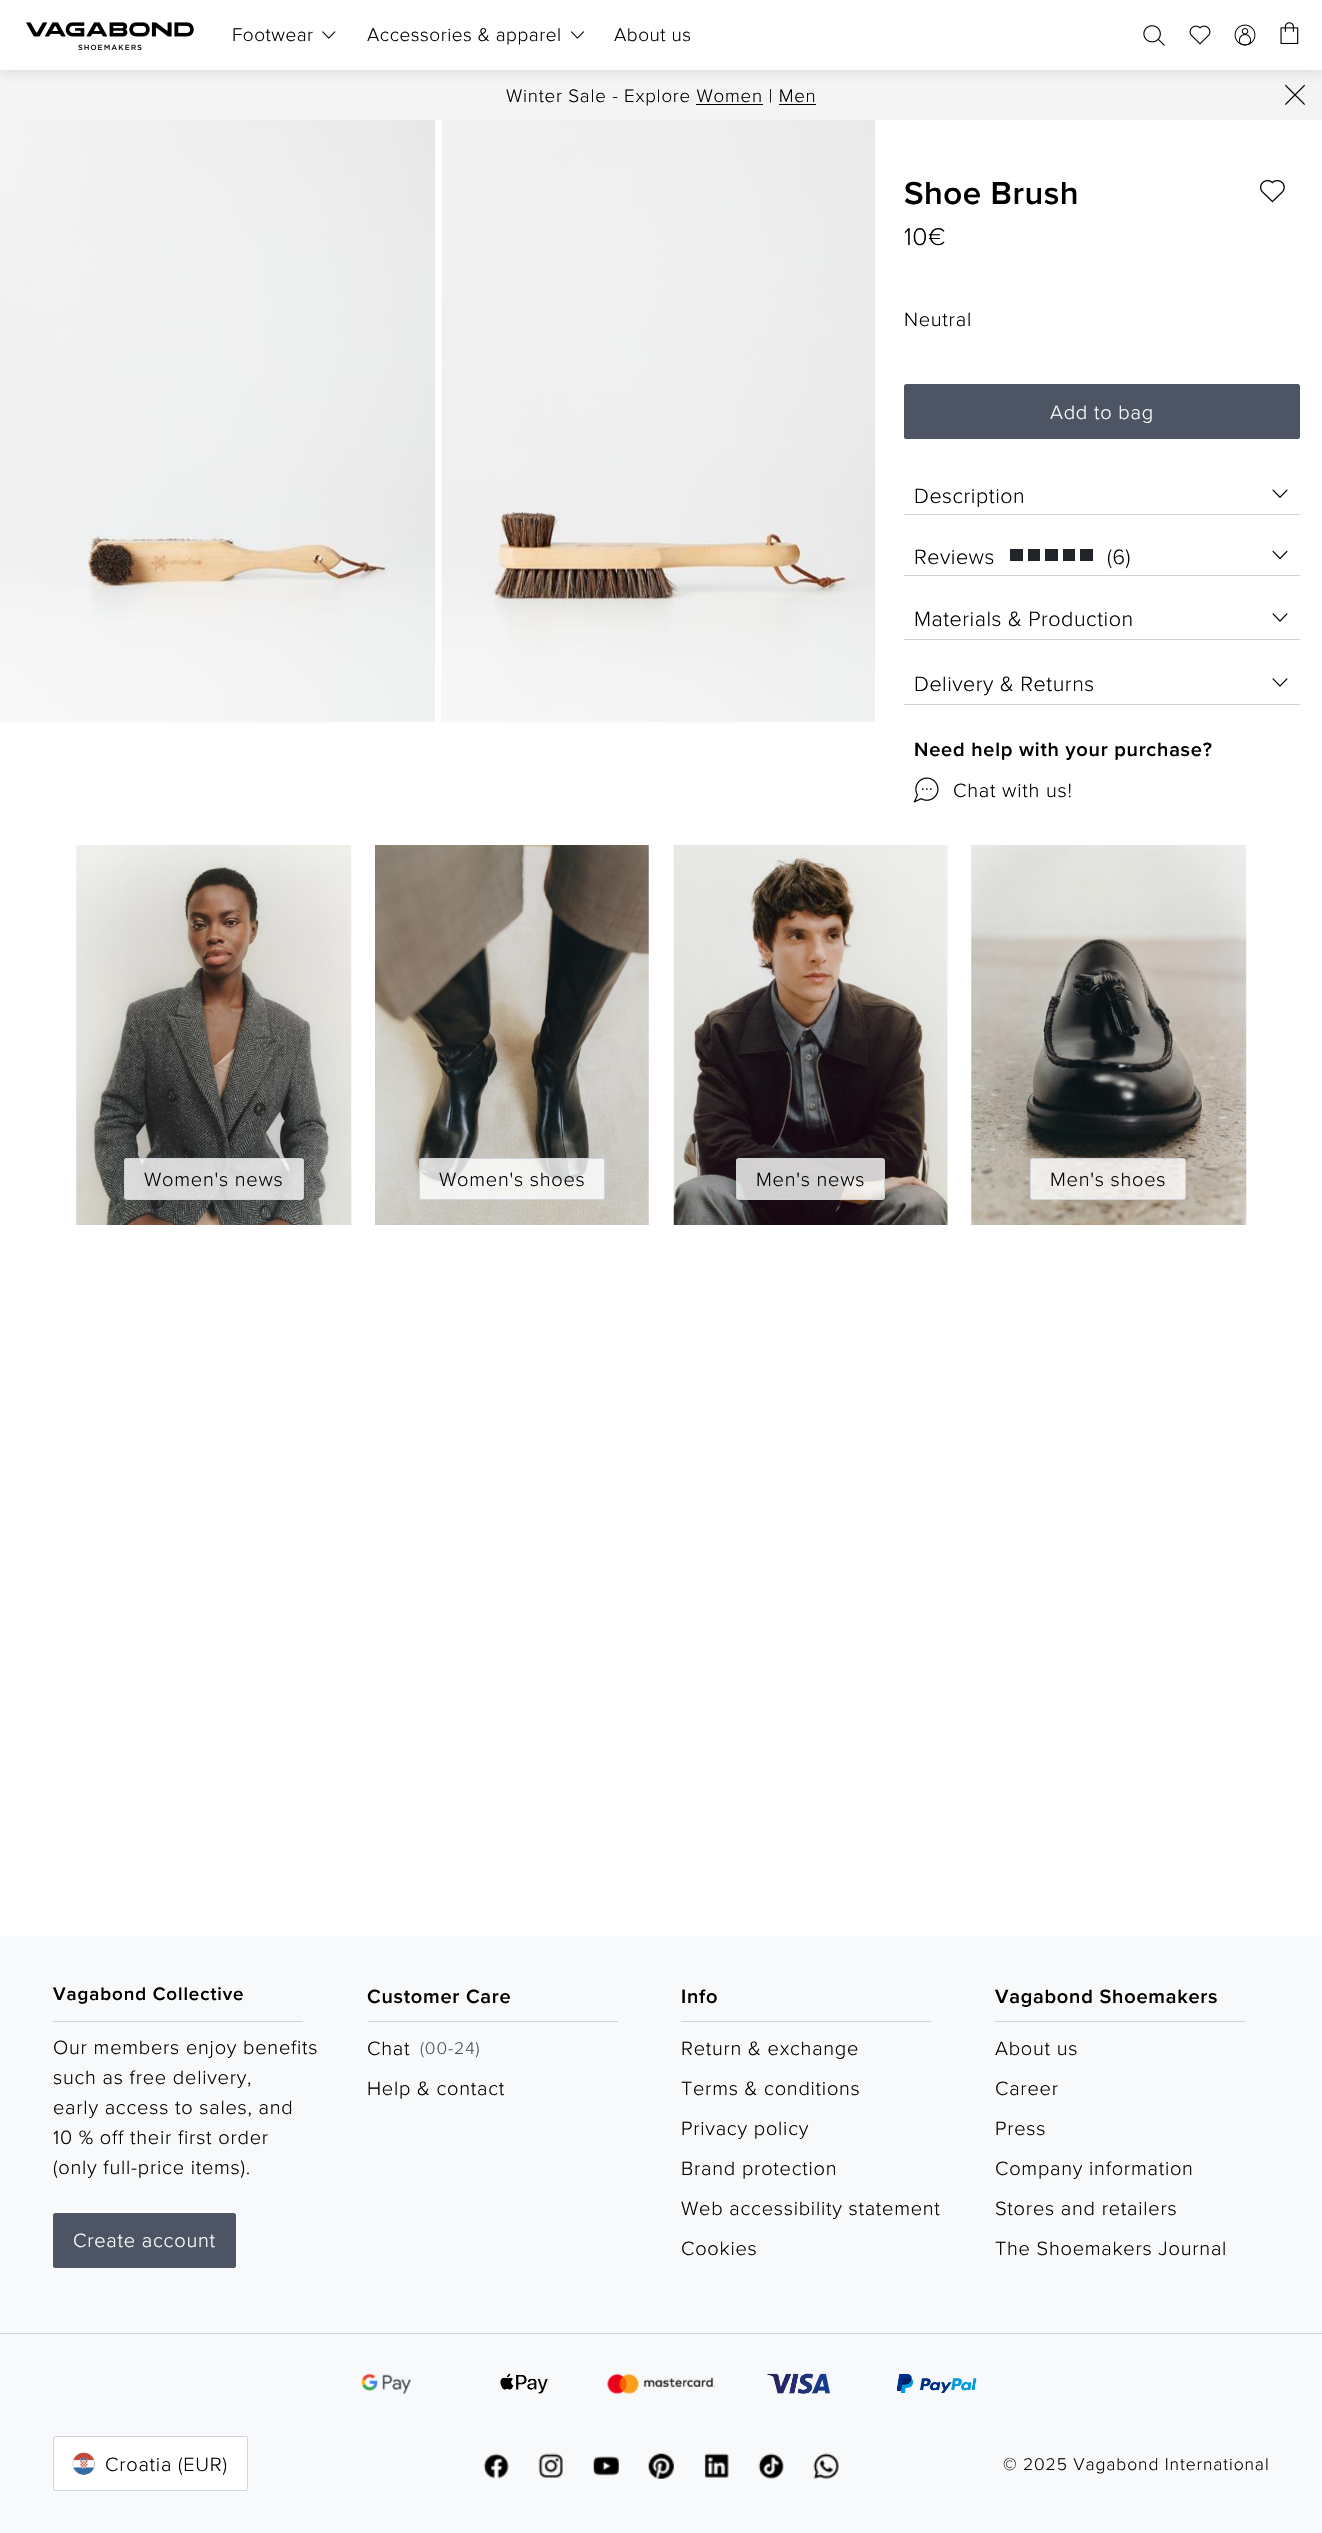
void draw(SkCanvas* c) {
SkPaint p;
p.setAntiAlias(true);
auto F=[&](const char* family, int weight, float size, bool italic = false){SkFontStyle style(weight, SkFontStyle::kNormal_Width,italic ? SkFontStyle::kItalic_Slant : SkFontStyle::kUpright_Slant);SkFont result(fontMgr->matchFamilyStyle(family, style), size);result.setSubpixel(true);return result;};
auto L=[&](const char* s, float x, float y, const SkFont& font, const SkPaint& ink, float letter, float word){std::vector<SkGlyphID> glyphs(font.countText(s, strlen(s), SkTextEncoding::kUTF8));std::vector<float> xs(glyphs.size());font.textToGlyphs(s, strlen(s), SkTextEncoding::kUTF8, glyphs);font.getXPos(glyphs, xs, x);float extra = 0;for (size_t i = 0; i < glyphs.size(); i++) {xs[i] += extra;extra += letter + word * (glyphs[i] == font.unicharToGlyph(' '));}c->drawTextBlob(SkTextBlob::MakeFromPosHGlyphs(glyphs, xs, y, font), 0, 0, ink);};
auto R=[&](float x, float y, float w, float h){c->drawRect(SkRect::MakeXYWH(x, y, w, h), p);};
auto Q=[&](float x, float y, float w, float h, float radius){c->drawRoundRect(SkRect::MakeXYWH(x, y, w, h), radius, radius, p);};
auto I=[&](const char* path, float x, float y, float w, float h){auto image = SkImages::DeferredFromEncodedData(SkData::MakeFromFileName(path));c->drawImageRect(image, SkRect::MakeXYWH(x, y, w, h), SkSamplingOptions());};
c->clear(0xffffffff);
p.setColor(0xfff4f4f4);
R(0,70,1322,50);
I("8.png",1285,84,20,21);
c->save();
c->clipRect(SkRect::MakeXYWH(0,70,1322,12));
p.setColor(0x40ababab);
p.setMaskFilter(SkMaskFilter::MakeBlur(kNormal_SkBlurStyle, 5));
c->drawRect(SkRect::MakeXYWH(0,5,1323,70),p);
p.setMaskFilter(nullptr);
c->restore();
I("1.png",26,22,168,29);
auto f1 = F("Proxima Nova",300,19);
p.setColor(0xff000000);
L("Footwear",232,41,f1,p,.5,0);
I("2.png",322,31,14,8);
L("Accessories & apparel",367,41,f1,p,.5,0);
I("3.png",571,31,13,8);
L("About us",614,41,f1,p,.5,0);
I("4.png",1143,25,22,21);
I("5.png",1189,25,22,20);
I("6.png",1234,24,22,22);
I("7.png",1280,22,19,22);
auto f2 = F("Proxima Nova",300,18.75);
L("Winter Sale - Explore Women | Men",506,102,f2,p,.75,0);
R(696,104,67,1);
R(779,104,37,1);
I("9.png",0,120,435,603);
I("10.png",441,120,434,603);
auto f3 = F("Proxima Nova",600,33);
L("Shoe Brush",904,204,f3,p,.5,0);
I("11.png",1260,180,25,23);
auto f4 = F("Proxima Nova",300,25);
L("10€",904,245,f4,p,.5,0);
auto f5 = F("Proxima Nova",300,20);
L("Neutral",904,326,f5,p,.75,0);
p.setColor(0xff4d5564);
Q(904,384,396,55,2.5);
p.setColor(0xffffffff);
L("Add to bag",1050,419,f5,p,.75,0);
p.setColor(0xffced4da);
R(904,514,396,1);
auto f6 = F("Proxima Nova",300,21.5);
p.setColor(0xff000000);
L("Description",914,503,f6,p,.5,0);
I("12.png",1272,489,16,9);
p.setColor(0xffced4da);
R(904,575,396,1);
p.setColor(0xff000000);
L("Reviews",914,564,f6,p,.5,0);
p.setColor(0xff212529);
R(1010,549,13,12);
R(1028,549,12,12);
R(1045,549,13,12);
R(1063,549,12,12);
R(1080,549,13,12);
p.setColor(0xff000000);
L("(6)",1107,564,f6,p,.5,0);
I("13.png",1272,550,16,10);
p.setColor(0xffced4da);
R(904,639,396,1);
p.setColor(0xff000000);
L("Materials & Production",914,626,f6,p,.5,0);
I("14.png",1272,613,16,9);
p.setColor(0xffced4da);
R(904,704,396,1);
p.setColor(0xff000000);
L("Delivery & Returns",914,691,f6,p,.5,0);
I("14.png",1272,678,16,9);
auto f7 = F("Proxima Nova",600,20);
L("Need help with your purchase?",914,756,f7,p,.75,0);
I("15.png",913,777,26,26);
L("Chat with us!",953,797,f5,p,.75,0);
I("16.png",76,845,276,380);
p.setColor(0xccffffff);
c->drawRoundRect(SkRect::MakeXYWH(124.5,1158.5,179,41),2,2,p);
p.setStroke(true);
p.setStrokeWidth(1);
p.setColor(0xffced4da);
c->drawRoundRect(SkRect::MakeXYWH(124.5,1158.5,179,41),2,2,p);
p.setStroke(false);
p.setColor(0xff000000);
L("Women's news",144,1186,f5,p,.75,0);
I("17.png",375,845,274,380);
p.setColor(0xccffffff);
c->drawRoundRect(SkRect::MakeXYWH(419.5,1158.5,185,41),2,2,p);
p.setStroke(true);
p.setColor(0xffced4da);
c->drawRoundRect(SkRect::MakeXYWH(419.5,1158.5,185,41),2,2,p);
p.setStroke(false);
p.setColor(0xff000000);
L("Women's shoes",439,1186,f5,p,.75,0);
I("18.png",673,845,275,380);
p.setColor(0xccffffff);
c->drawRoundRect(SkRect::MakeXYWH(736.5,1158.5,148,41),2,2,p);
p.setStroke(true);
p.setColor(0xffced4da);
c->drawRoundRect(SkRect::MakeXYWH(736.5,1158.5,148,41),2,2,p);
p.setStroke(false);
p.setColor(0xff000000);
L("Men's news",756,1186,f5,p,.75,0);
I("19.png",971,845,276,380);
p.setColor(0xccffffff);
c->drawRoundRect(SkRect::MakeXYWH(1030.5,1158.5,155,41),2,2,p);
p.setStroke(true);
p.setColor(0xffced4da);
c->drawRoundRect(SkRect::MakeXYWH(1030.5,1158.5,155,41),2,2,p);
p.setStroke(false);
p.setColor(0xff000000);
L("Men's shoes",1050,1186,f5,p,.75,0);
p.setColor(0xfff8f9fa);
R(0,1936,1322,597);
auto f8 = F("Proxima Nova",600,18.75);
p.setColor(0xff000000);
L("Vagabond Collective",53,2000,f8,p,.9,0);
p.setColor(0xffced4da);
R(53,2021,250,1);
p.setColor(0xff000000);
L("Our members enjoy benefits",53,2054,f5,p,.75,0);
L("such as free delivery,",53,2084,f5,p,.75,0);
L("early access to sales, and",53,2114,f5,p,.75,0);
L("10 % off their first order",53,2144,f5,p,.75,0);
L("(only full-price items).",53,2174,f5,p,.75,0);
p.setColor(0xff4d5564);
Q(53,2213,183,55,2.5);
p.setColor(0xffffffff);
L("Create account",73,2247,f5,p,.75,0);
p.setColor(0xff000000);
L("Customer Care",367,2003,f7,p,.75,0);
p.setColor(0xffced4da);
R(368,2021,250,1);
p.setColor(0xff000000);
L("Chat",367,2055,f5,p,.75,0);
auto f9 = F("Proxima Nova",300,17.5);
p.setColor(0xff495057);
L("(00-24)",420,2054,f9,p,.9,0);
p.setColor(0xff000000);
L("Help & contact",367,2095,f5,p,.75,0);
L("Info",681,2003,f7,p,.75,0);
p.setColor(0xffced4da);
R(681,2021,250,1);
p.setColor(0xff000000);
L("Return & exchange",681,2055,f5,p,.75,0);
L("Terms & conditions",681,2095,f5,p,.75,0);
L("Privacy policy",681,2135,f5,p,.75,0);
L("Brand protection",681,2175,f5,p,.75,0);
L("Web accessibility statement",681,2215,f5,p,.75,0);
L("Cookies",681,2255,f5,p,.75,0);
L("Vagabond Shoemakers",995,2003,f7,p,.75,0);
p.setColor(0xffced4da);
R(995,2021,250,1);
p.setColor(0xff000000);
L("About us",995,2055,f5,p,.75,0);
L("Career",995,2095,f5,p,.75,0);
L("Press",995,2135,f5,p,.75,0);
L("Company information",995,2175,f5,p,.75,0);
L("Stores and retailers",995,2215,f5,p,.75,0);
L("The Shoemakers Journal",995,2255,f5,p,.75,0);
p.setColor(0xffced4da);
R(0,2333,1322,1);
I("20.png",361,2373,51,21);
I("21.png",500,2373,48,21);
I("22.png",607,2373,108,21);
I("23.png",767,2373,63,21);
I("24.png",897,2374,80,19);
p.setColor(0xffffffff);
c->drawRoundRect(SkRect::MakeXYWH(53.5,2436.5,194,54),2,2,p);
p.setStroke(true);
p.setColor(0xffced4da);
c->drawRoundRect(SkRect::MakeXYWH(53.5,2436.5,194,54),2,2,p);
I("25.png",72,2452,23,23);
p.setStroke(false);
p.setColor(0xff000000);
L("Croatia (EUR)",105,2471,f5,p,.75,0);
I("26.png",483,2453,26,26);
I("27.png",538,2453,25,25);
I("28.png",593,2456,26,20);
I("29.png",648,2453,26,26);
I("30.png",704,2453,25,25);
I("31.png",758,2453,26,26);
I("32.png",813,2453,26,26);
L("© 2025 Vagabond International",1003,2470,f9,p,.9,0);
}
